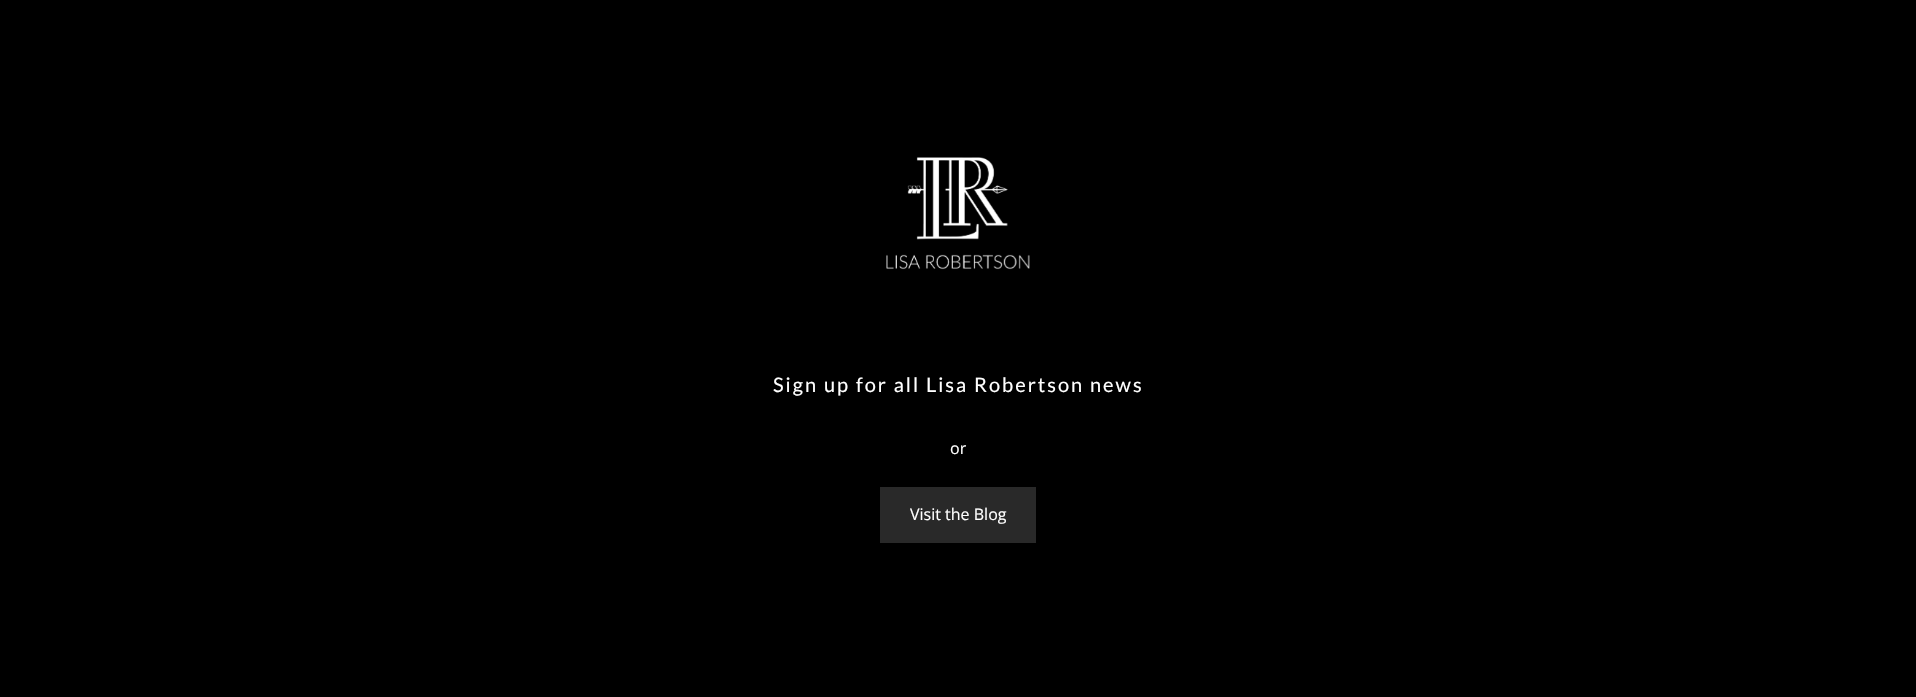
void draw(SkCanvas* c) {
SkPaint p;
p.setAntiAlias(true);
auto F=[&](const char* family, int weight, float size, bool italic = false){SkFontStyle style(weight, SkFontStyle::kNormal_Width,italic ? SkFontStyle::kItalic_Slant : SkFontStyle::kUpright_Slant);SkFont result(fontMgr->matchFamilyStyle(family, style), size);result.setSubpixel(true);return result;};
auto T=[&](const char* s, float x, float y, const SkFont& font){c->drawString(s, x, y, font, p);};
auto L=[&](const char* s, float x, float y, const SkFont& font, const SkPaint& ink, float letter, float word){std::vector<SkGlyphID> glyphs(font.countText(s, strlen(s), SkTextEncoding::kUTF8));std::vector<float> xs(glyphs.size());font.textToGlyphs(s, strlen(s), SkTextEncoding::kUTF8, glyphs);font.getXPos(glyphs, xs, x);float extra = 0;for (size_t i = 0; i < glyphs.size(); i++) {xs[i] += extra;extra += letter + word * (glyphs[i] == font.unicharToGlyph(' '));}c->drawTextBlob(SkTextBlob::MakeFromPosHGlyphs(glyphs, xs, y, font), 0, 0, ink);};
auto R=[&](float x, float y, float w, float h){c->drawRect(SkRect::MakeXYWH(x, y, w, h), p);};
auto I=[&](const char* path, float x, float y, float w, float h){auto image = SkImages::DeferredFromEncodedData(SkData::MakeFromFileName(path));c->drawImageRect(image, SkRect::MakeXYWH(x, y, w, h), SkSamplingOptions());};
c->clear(0xff000000);
I("1.png",886,157,144,113);
auto f1 = F("Lato",400,20);
p.setColor(0xffffffff);
L("Sign up for all Lisa Robertson news",773,392,f1,p,2,0);
auto f2 = F("Open Sans",400,16);
T("or",950,454,f2);
p.setColor(0xff292929);
R(880,487,156,56);
p.setColor(0xffffffff);
T("Visit the Blog",910,520,f2);
}
